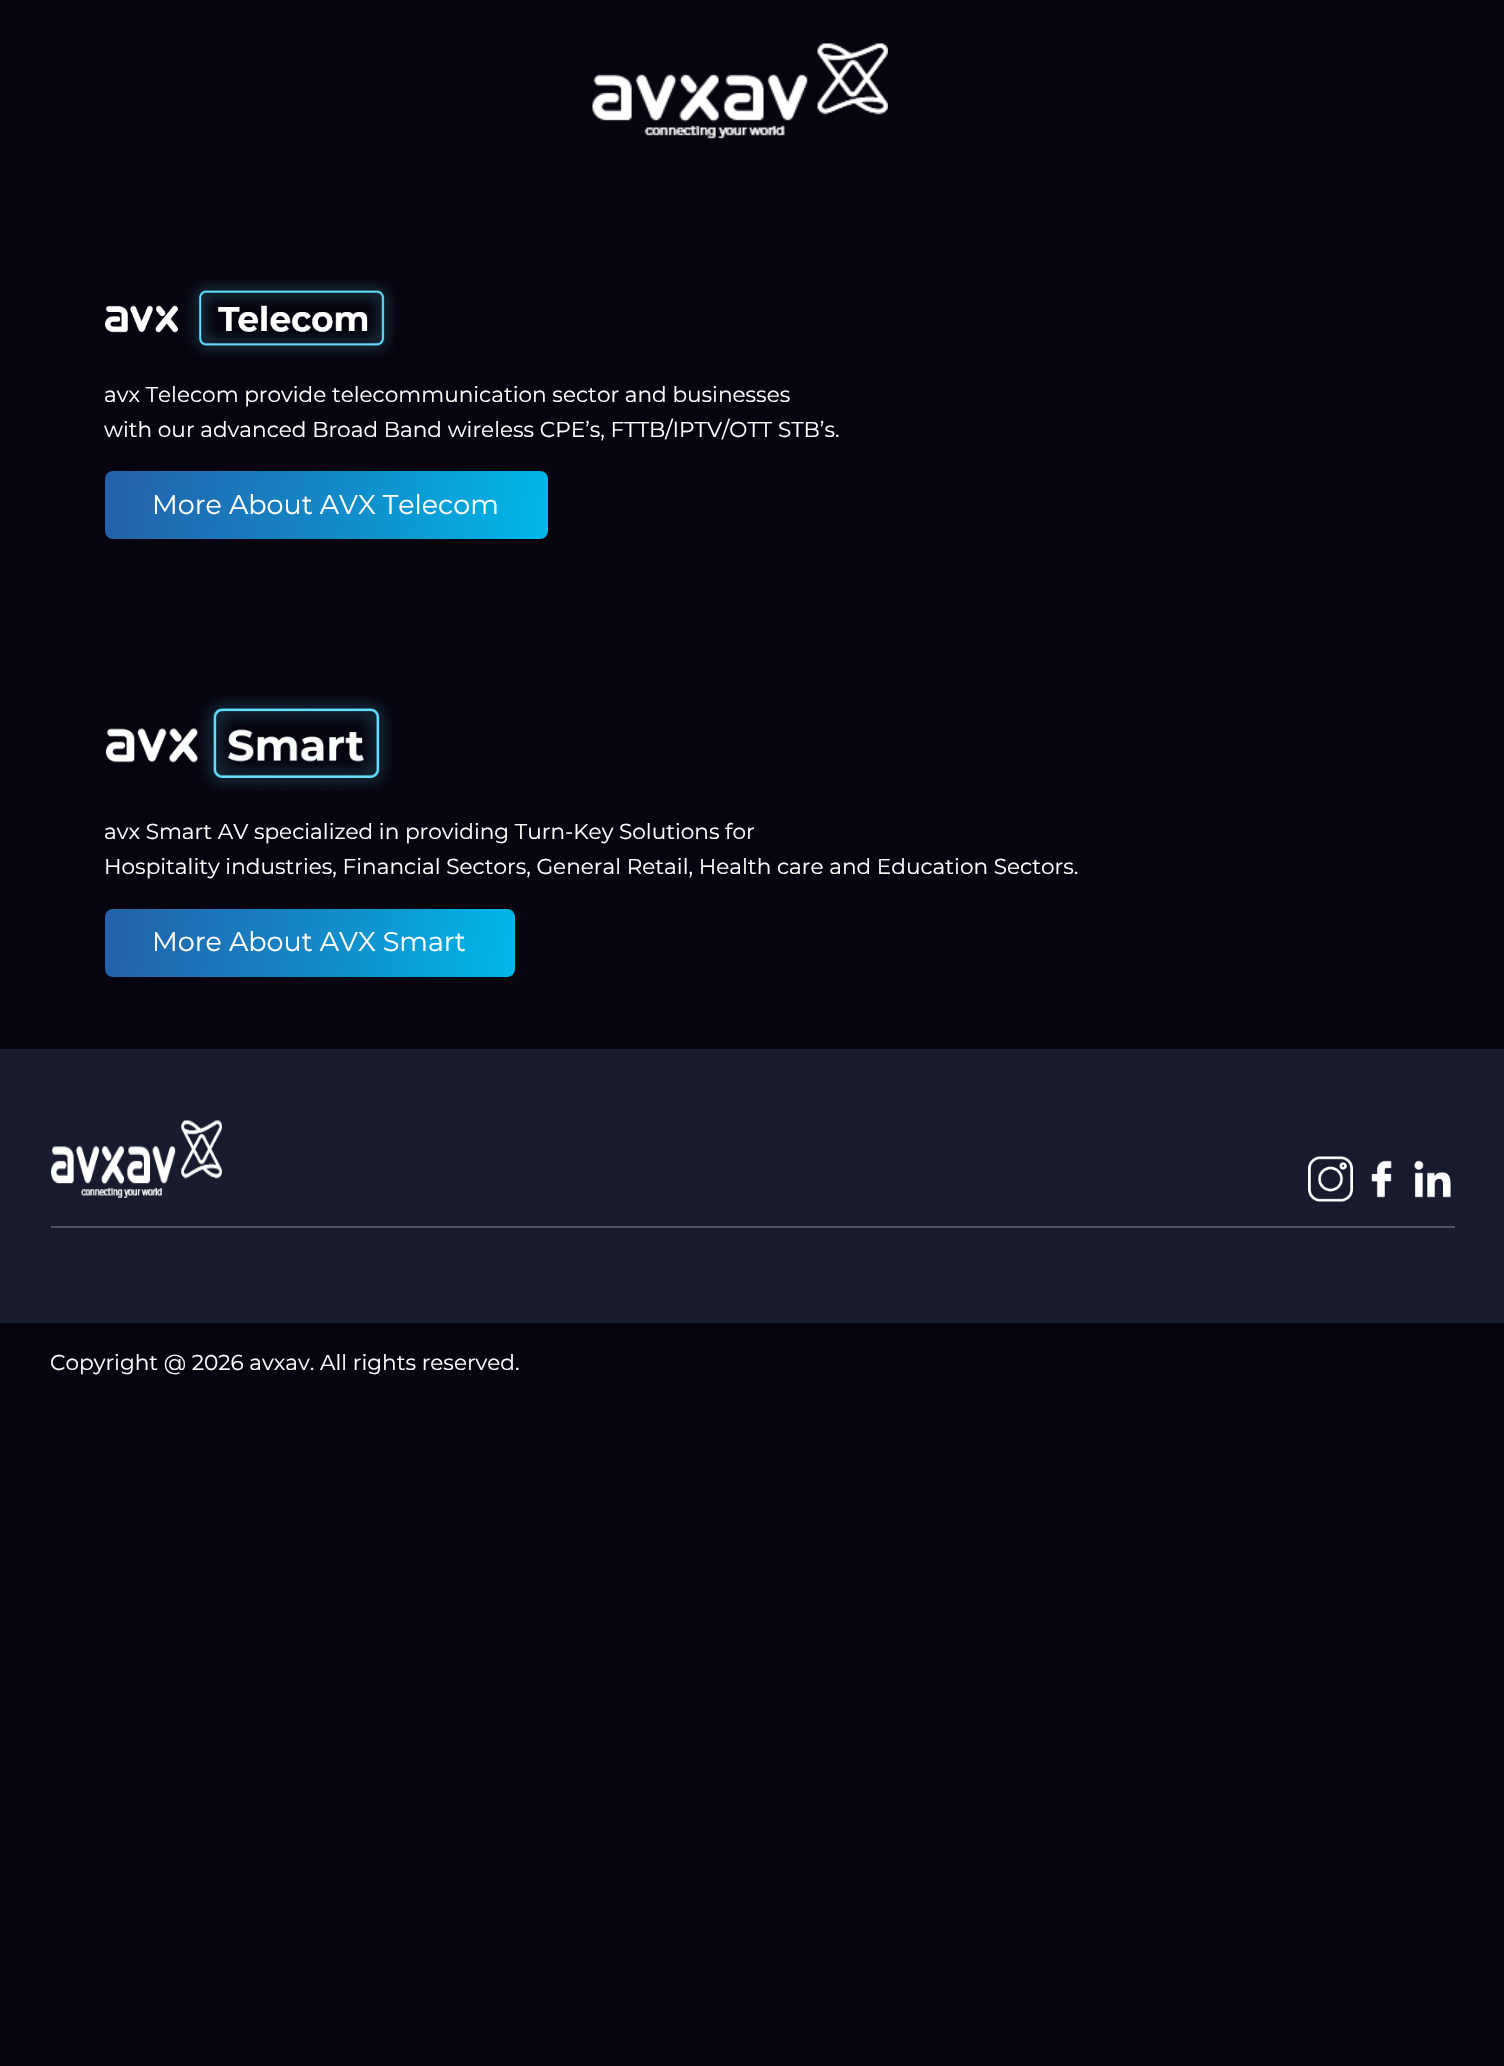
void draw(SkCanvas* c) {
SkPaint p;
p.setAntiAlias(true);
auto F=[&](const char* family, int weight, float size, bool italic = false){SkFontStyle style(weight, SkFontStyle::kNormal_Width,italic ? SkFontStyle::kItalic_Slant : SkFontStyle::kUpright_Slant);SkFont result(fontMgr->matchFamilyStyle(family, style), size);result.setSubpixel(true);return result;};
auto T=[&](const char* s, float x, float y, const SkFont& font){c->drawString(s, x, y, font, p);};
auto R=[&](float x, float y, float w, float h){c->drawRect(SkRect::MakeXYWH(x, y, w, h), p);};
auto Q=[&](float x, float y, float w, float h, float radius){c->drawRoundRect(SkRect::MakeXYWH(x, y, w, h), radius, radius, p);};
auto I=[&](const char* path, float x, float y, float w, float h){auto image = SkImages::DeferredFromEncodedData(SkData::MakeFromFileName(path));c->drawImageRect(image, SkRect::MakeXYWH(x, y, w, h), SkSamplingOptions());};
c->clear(0xff06040f);
I("1.png",592,43,296,96);
I("2.png",105,279,290,78);
auto f1 = F("Montserrat",400,21.6);
p.setColor(0xffffffff);
T("avx Telecom provide telecommunication sector and businesses",104,402,f1);
T("with our advanced Broad Band wireless CPE’s, FTTB/IPTV/OTT STB’s.",104,437,f1);
{
const SkColor colors[] = {0xff2460a9,0xff1389c8,0xff00b8ea};
const float stops[] = {0,.52,1};
const SkPoint ends[] = {{104,477}, {548,532}};
p.setShader(SkGradientShader::MakeLinear(ends, colors, stops, 3, SkTileMode::kClamp));
p.setAlpha(255);
}
Q(105,471,443,68,8);
auto f2 = F("Montserrat",400,27);
p.setShader(nullptr);
p.setColor(0xffffffff);
T("More About AVX Telecom",152,514,f2);
I("3.png",105,695,288,96);
T("avx Smart AV specialized in providing Turn-Key Solutions for",104,839,f1);
T("Hospitality industries, Financial Sectors, General Retail, Health care and Education Sectors.",104,874,f1);
{
const SkColor colors[] = {0xff2460a9,0xff1389c8,0xff00b8ea};
const float stops[] = {0,.52,1};
const SkPoint ends[] = {{104,917}, {516,968}};
p.setShader(SkGradientShader::MakeLinear(ends, colors, stops, 3, SkTileMode::kClamp));
p.setAlpha(255);
}
Q(105,909,410,68,8);
p.setShader(nullptr);
p.setColor(0xffffffff);
T("More About AVX Smart",152,951,f2);
p.setColor(0xff181b2e);
R(0,1049,1504,274);
I("4.png",51,1120,171,78);
I("5.png",1308,1156,45,46);
I("6.png",1371,1160,21,38);
I("7.png",1414,1160,37,38);
p.setColor(0xff525462);
R(51,1226,1404,2);
p.setColor(0xffffffff);
T("Copyright @ 2026 avxav. All rights reserved.",50,1370,f1);
}
